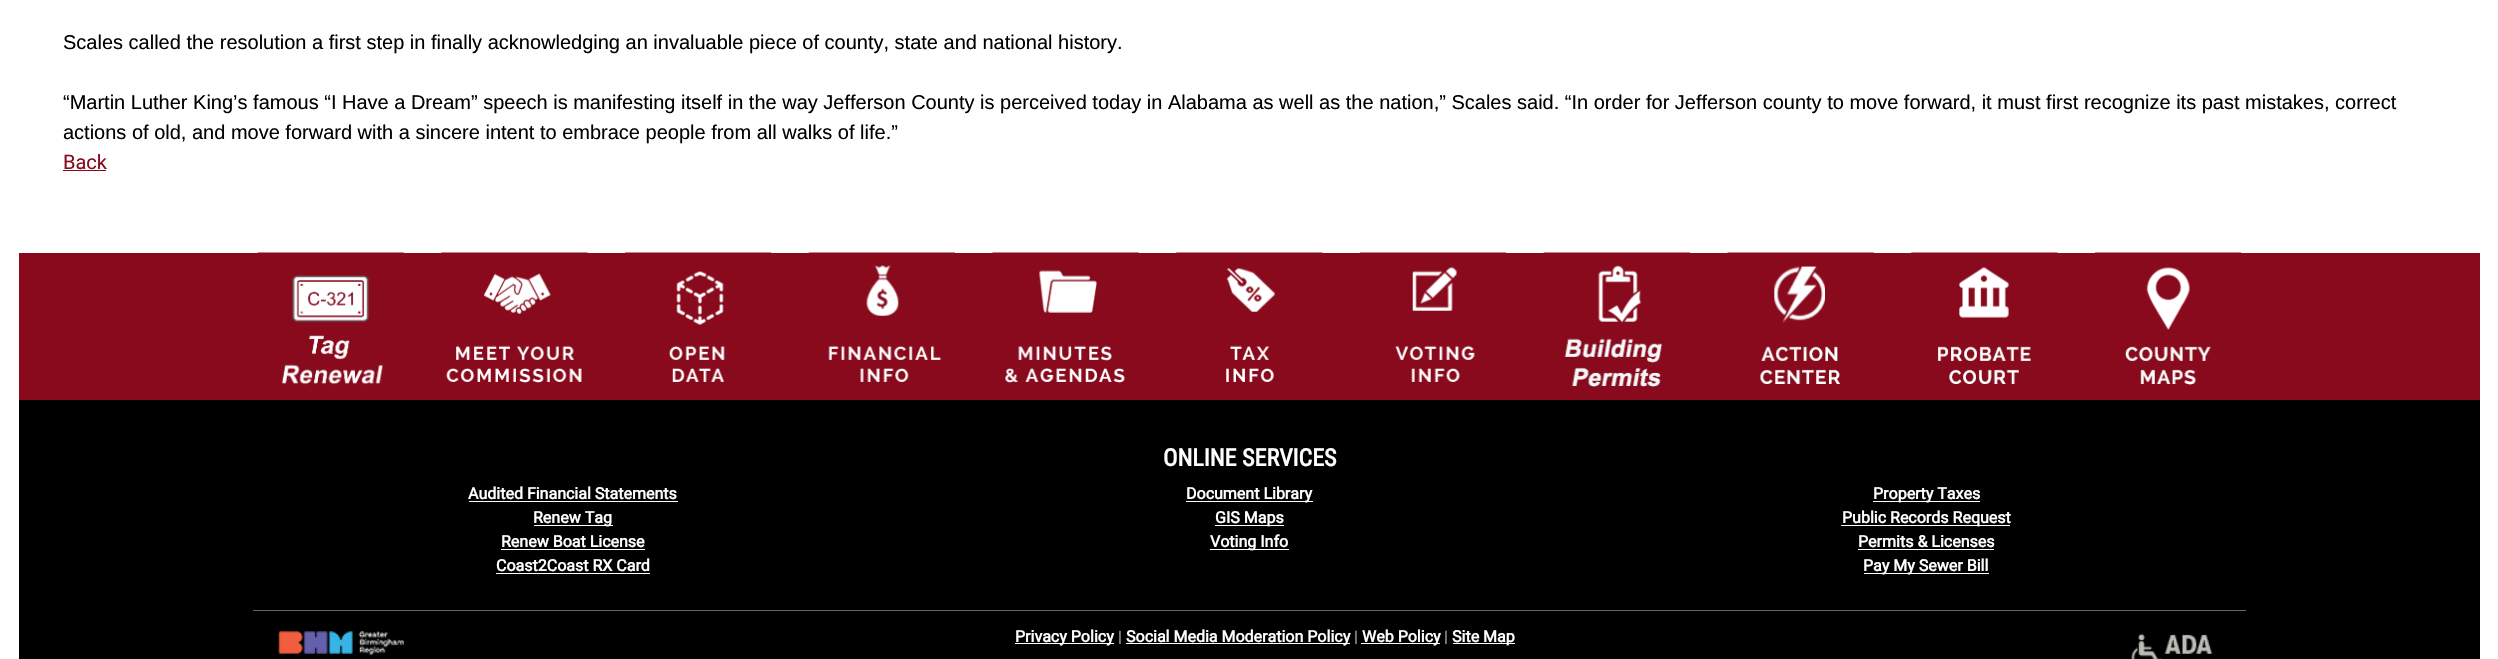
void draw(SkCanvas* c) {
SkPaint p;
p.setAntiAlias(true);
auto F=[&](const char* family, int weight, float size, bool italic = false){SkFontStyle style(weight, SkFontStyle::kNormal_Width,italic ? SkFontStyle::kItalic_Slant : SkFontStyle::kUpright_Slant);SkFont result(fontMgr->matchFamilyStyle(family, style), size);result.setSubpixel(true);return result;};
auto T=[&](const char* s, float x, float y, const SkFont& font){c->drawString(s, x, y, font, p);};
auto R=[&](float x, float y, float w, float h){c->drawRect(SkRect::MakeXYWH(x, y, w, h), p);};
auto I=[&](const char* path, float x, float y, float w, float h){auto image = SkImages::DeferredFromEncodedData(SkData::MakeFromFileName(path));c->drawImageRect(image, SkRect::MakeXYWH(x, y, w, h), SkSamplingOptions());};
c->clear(0xffffffff);
auto f1 = F("Liberation Sans",400,20);
p.setColor(0xff000000);
T("Scales called the resolution a first step in finally acknowledging an invaluable piece of county, state and national history.",63,49,f1);
T("“Martin Luther King’s famous “I Have a Dream” speech is manifesting itself in the way Jefferson County is perceived today in Alabama as well as the nation,” Scales said. “In order for Jefferson county to move forward, it must first recognize its past mistakes, correct",63,109,f1);
T("actions of old, and move forward with a sincere intent to embrace people from all walks of life.”",63,139,f1);
auto f2 = F("Roboto",400,20);
p.setColor(0xff890a1d);
T("Back",63,169,f2);
R(63,170,43,1);
R(19,253,2461,147);
I("1.png",257,252,147,133);
I("2.png",441,252,147,131);
I("3.png",625,252,147,130);
I("4.png",808,252,147,130);
I("5.png",992,252,147,131);
I("6.png",1176,252,147,130);
I("7.png",1360,252,147,130);
I("8.png",1543,252,147,135);
I("9.png",1727,252,147,132);
I("10.png",1911,252,147,132);
I("11.png",2095,252,147,133);
p.setColor(0xff000000);
R(19,400,2461,259);
auto f3 = F("Roboto Condensed",700,24);
p.setColor(0xffffffff);
T("ONLINE SERVICES",1163,466,f3);
auto f4 = F("Roboto",700,16);
T("Audited Financial Statements",468,499,f4);
R(469,501,209,1);
R(534,525,79,1);
T("Renew Tag",533,523,f4);
T("Renew Boat License",501,547,f4);
R(501,549,144,1);
T("Coast2Coast RX Card",496,571,f4);
R(496,573,154,1);
R(1186,501,127,1);
T("Document Library",1186,499,f4);
R(1215,525,69,1);
T("GIS Maps",1215,523,f4);
R(1210,549,79,1);
T("Voting Info",1210,547,f4);
R(1873,501,107,1);
T("Property Taxes",1873,499,f4);
R(1841,525,169,1);
T("Public Records Request",1842,523,f4);
T("Permits & Licenses",1858,547,f4);
R(1858,549,136,1);
R(1864,573,125,1);
T("Pay My Sewer Bill",1863,571,f4);
p.setColor(0xff666666);
R(253,610,1993,1);
I("12.png",278,631,126,25);
p.setColor(0xffffffff);
R(1015,643,99,1);
T("Privacy Policy",1015,642,f4);
auto f5 = F("Roboto",400,16);
p.setColor(0xffaaaaaa);
T("|",1118,642,f5);
p.setColor(0xffffffff);
R(1126,643,224,1);
T("Social Media Moderation Policy",1126,642,f4);
p.setColor(0xffaaaaaa);
T("|",1354,642,f5);
p.setColor(0xffffffff);
R(1361,643,79,1);
T("Web Policy",1362,642,f4);
p.setColor(0xffaaaaaa);
T("|",1444,642,f5);
p.setColor(0xffffffff);
R(1453,643,62,1);
T("Site Map",1452,642,f4);
I("13.png",2131,633,82,26);
}
